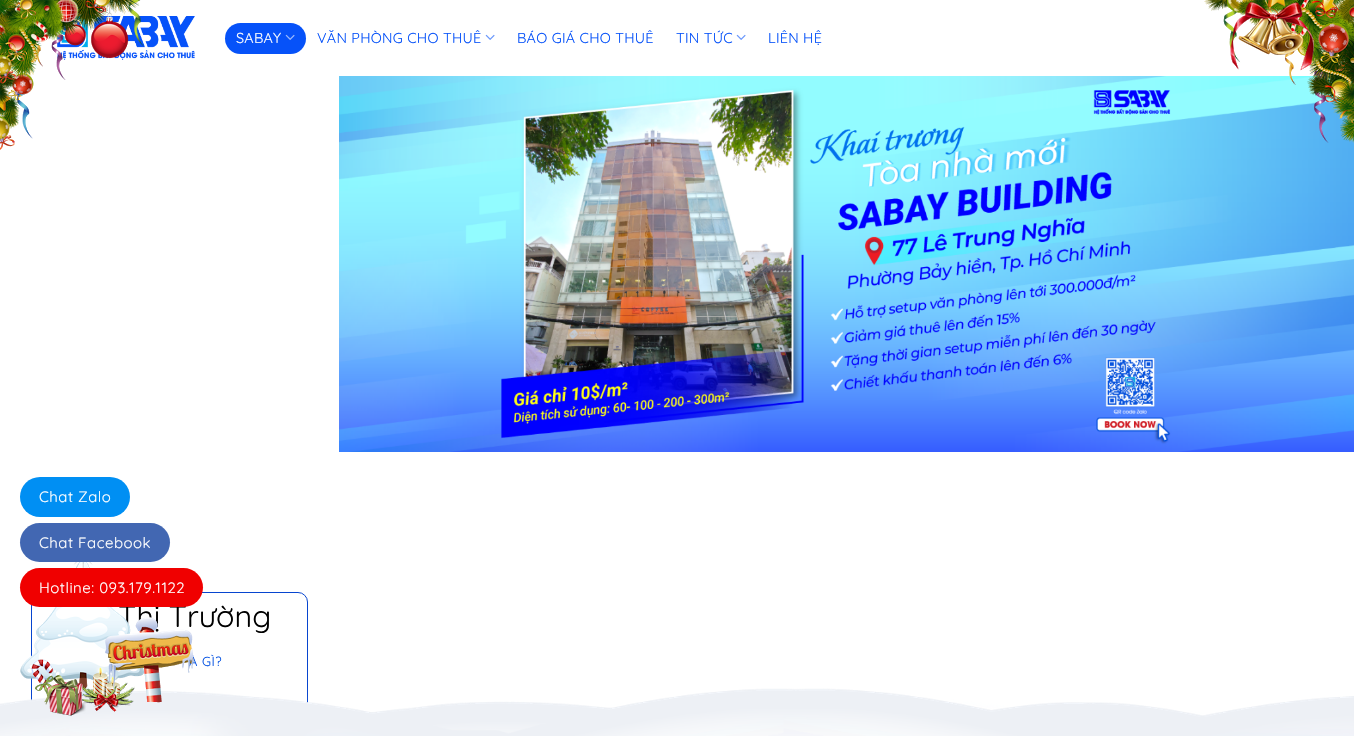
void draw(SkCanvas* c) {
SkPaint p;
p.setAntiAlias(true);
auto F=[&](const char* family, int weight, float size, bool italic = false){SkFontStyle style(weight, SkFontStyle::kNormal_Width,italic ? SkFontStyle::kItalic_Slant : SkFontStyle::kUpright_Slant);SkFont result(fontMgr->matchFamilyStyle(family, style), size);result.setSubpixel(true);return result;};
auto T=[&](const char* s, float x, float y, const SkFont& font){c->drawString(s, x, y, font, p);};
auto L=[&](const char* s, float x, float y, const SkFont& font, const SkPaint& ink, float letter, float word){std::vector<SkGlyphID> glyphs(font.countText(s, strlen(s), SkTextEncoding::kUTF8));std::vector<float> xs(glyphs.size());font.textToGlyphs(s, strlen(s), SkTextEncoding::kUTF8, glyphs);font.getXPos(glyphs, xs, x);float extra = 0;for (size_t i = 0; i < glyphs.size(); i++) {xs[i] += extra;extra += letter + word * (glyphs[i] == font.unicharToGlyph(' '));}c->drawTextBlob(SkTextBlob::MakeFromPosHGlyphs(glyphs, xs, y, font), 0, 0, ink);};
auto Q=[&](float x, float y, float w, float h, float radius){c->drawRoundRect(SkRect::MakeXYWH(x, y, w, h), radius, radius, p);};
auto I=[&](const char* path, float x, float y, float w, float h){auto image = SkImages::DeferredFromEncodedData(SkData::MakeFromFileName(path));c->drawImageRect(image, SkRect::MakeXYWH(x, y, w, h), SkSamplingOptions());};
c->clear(0xffffffff);
I("2.png",57,16,138,44);
I("1.png",0,0,144,150);
p.setColor(0xff0652f9);
Q(225,23,81,31,15.5);
auto f1 = F("Quicksand",300,14.4);
p.setColor(0xffffffff);
L("SABAY",236,43,f1,p,.25,0);
I("3.png",285,34,10,6);
p.setColor(0xff0652f9);
L("VĂN PHÒNG CHO THUÊ",317,43,f1,p,.25,0);
I("4.png",485,34,10,6);
L("BÁO GIÁ CHO THUÊ",517,43,f1,p,.25,0);
L("TIN TỨC",676,43,f1,p,.25,0);
I("4.png",736,34,10,6);
L("LIÊN HỆ",768,43,f1,p,.25,0);
I("5.png",339,76,1015,376);
p.setStroke(true);
p.setStrokeWidth(1);
p.setColor(0xff0745cf);
c->drawRoundRect(SkRect::MakeXYWH(31.5,592.5,276,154),9.5,9.5,p);
auto f2 = F("Quicksand",300,30.5);
p.setStroke(false);
p.setColor(0xff000000);
T("Thị Trường",118,627,f2);
auto f3 = F("Quicksand",300,13);
p.setColor(0xff004fe2);
L("À GÌ?",189,666,f3,p,.5,0);
I("6.png",1204,0,150,143);
p.setColor(0xff008ff3);
Q(20,477,110,40,20);
auto f4 = F("Quicksand",300,15);
p.setColor(0xffffffff);
L("Chat Zalo",39,502,f4,p,.5,0);
p.setColor(0xff4267b2);
Q(20,523,150,39,19.5);
p.setColor(0xffffffff);
L("Chat Facebook",39,548,f4,p,.5,0);
I("8.png",0,688,1354,48);
I("7.png",20,562,174,154);
p.setColor(0xfff00000);
Q(20,568,183,39,19.5);
p.setColor(0xffffffff);
L("Hotline: 093.179.1122",39,593,f4,p,.5,0);
}
